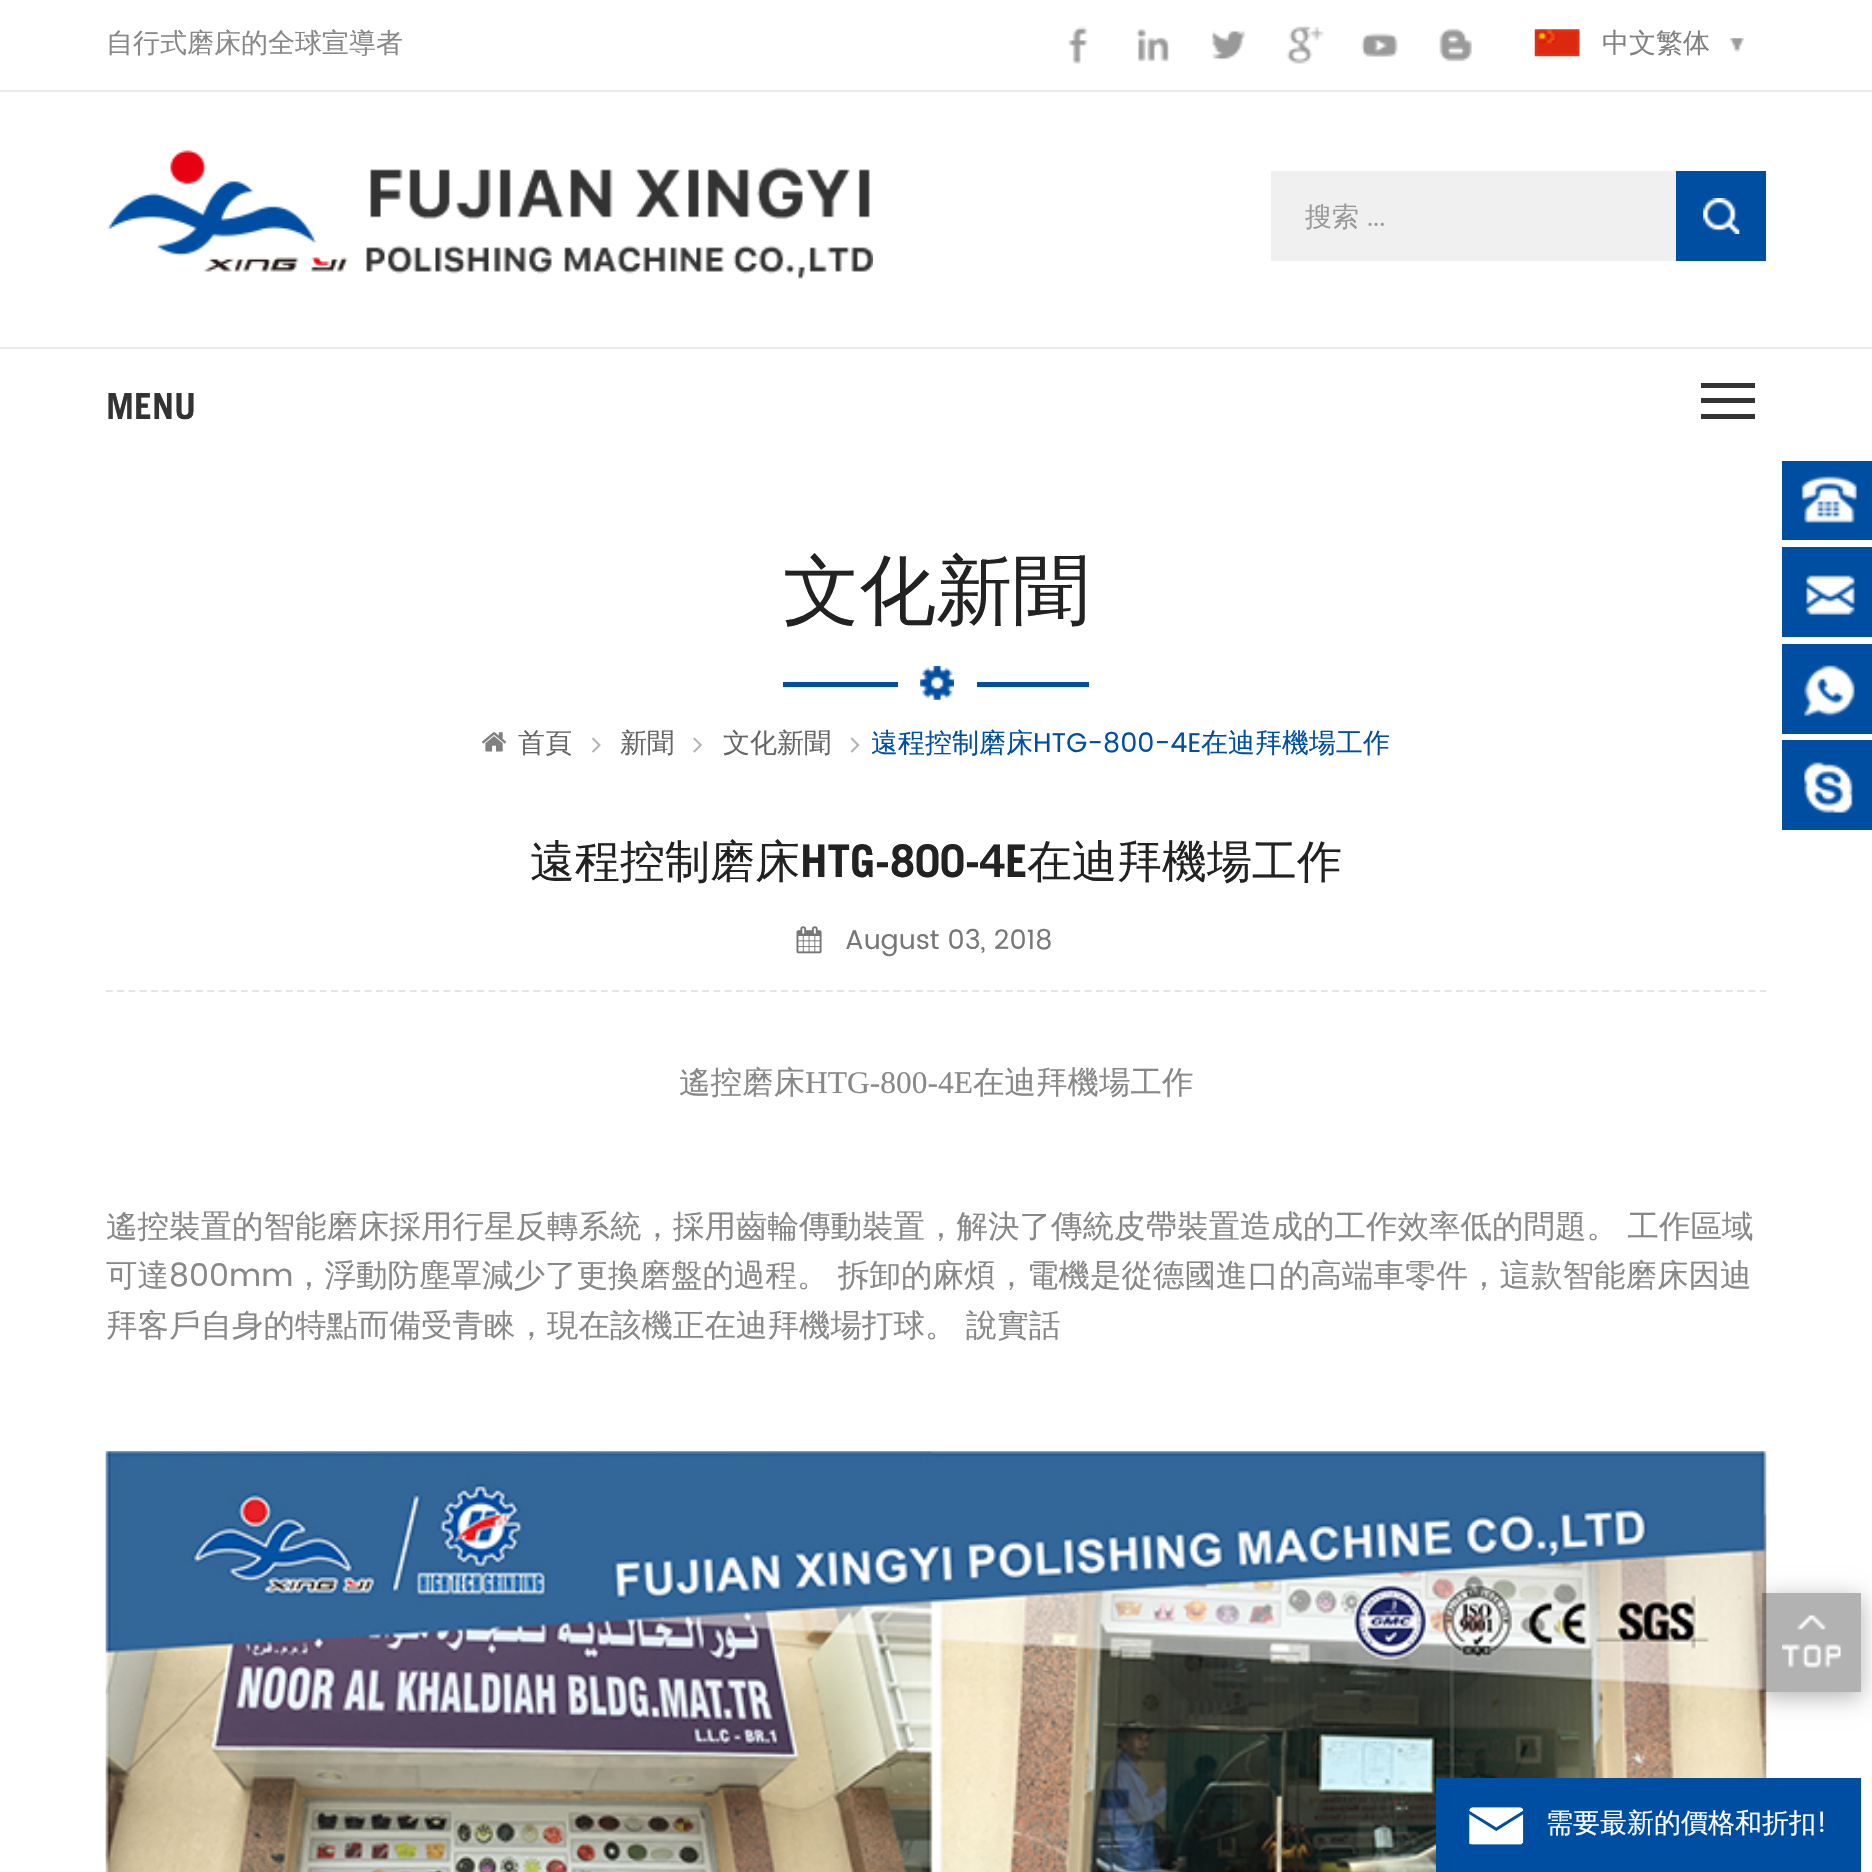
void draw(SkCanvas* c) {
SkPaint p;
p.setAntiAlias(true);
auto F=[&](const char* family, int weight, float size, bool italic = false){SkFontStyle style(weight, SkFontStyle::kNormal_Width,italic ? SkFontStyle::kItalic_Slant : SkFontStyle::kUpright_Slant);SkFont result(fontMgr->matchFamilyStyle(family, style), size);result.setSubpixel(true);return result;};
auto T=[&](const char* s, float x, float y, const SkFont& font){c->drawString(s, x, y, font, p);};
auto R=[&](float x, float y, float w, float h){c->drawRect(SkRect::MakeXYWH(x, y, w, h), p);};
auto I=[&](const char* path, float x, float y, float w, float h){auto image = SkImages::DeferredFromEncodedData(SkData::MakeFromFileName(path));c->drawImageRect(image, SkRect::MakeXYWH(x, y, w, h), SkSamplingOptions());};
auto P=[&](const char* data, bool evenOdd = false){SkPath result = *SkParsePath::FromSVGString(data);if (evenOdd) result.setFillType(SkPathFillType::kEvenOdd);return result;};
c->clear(0xffffffff);
p.setColor(0xffebebeb);
R(0,90,1872,2);
auto f1 = F("WenQuanYi Zen Hei",500,27);
p.setColor(0xff888888);
T("自行式磨床的全球宣導者",106,52,f1);
I("1.png",1068,26,20,38);
I("2.png",1136,28,33,34);
I("3.png",1211,31,35,29);
I("4.png",1286,26,38,38);
I("5.png",1361,33,37,24);
I("6.png",1439,28,33,34);
I("7.png",1534,29,46,28);
p.setColor(0xff808080);
T("中文繁体",1602,52,f1);
I("8.png",1730,38,14,14);
I("9.png",107,150,766,129);
p.setColor(0xfff0f0f0);
R(1271,171,405,90);
p.setColor(0xff999999);
T("搜索",1305,226,f1);
auto f2 = F("Poppins",400,27);
T("...",1367,226,f2);
p.setColor(0xff004ea2);
R(1676,171,90,90);
I("10.png",1703,198,37,36);
p.setColor(0xffebebeb);
R(0,347,1872,2);
auto f3 = F("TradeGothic",700,36);
p.setColor(0xff333333);
T("MENU",106,419,f3);
R(1701,383,54,5);
R(1701,398,54,5);
R(1701,414,54,5);
p.setColor(0xff004ea2);
R(783,682,306,5);
auto f4 = F("WenQuanYi Zen Hei",500,76.5);
p.setColor(0xff222222);
T("文化新聞",783,617,f4);
p.setColor(0xffffffff);
R(898,682,79,5);
I("11.png",920,666,34,34);
I("12.png",482,732,25,20);
p.setColor(0xff666666);
T("首頁",518,752,f1);
I("13.png",592,737,9,16);
T("新聞",620,752,f1);
I("14.png",693,737,9,16);
T("文化新聞",723,752,f1);
I("15.png",850,737,10,16);
p.setColor(0xff004ea2);
T("遠程控制磨床",871,752,f1);
T("HTG-800-4E",1033,752,f2);
T("在迪拜機場工作",1201,752,f1);
R(1782,461,90,79);
I("16.png",1801,476,56,47);
R(1782,547,90,90);
I("17.png",1806,575,49,40);
R(1782,644,90,90);
I("18.png",1804,665,51,52);
R(1782,740,90,90);
I("19.png",1804,762,49,51);
auto f5 = F("WenQuanYi Zen Hei",500,45);
p.setColor(0xff222222);
T("遠程控制磨床",530,877,f5);
auto f6 = F("TradeGothic",700,45);
T("HTG-800-4E",800,877,f6);
T("在迪拜機場工作",1027,877,f5);
p.setStroke(true);
p.setStrokeWidth(2.2);
p.setColor(0xffe5e5e5);
p.setPathEffect(SkDashPathEffect::Make({{6.75f,4.5f}}, 0));
c->drawPath(P("M106 991h1660"),p);
p.setPathEffect(nullptr);
I("20.png",796,926,26,28);
p.setStroke(false);
p.setColor(0xff777777);
T("August 03, 2018",845,949,f2);
auto f7 = F("WenQuanYi Zen Hei",500,31.5);
p.setColor(0xff888888);
T("遙控磨床",679,1093,f7);
auto f8 = F("Liberation Serif",400,31.5);
T("HTG-800-4E",805,1093,f8);
T("在迪拜機場工作",973,1093,f7);
T("遙控裝置的智能磨床採用行星反轉系統，採用齒輪傳動裝置，解決了傳統皮帶裝置造成的工作效率低的問題。 工作區域",106,1237,f7);
T("可達",106,1286,f7);
auto f9 = F("Poppins",400,31.5);
T("800mm",169,1286,f9);
T("，浮動防塵罩減少了更換磨盤的過程。 拆卸的麻煩，電機是從德國進口的高端車零件，這款智能磨床因迪",293,1286,f7);
T("拜客戶自身的特點而備受青睞，現在該機正在迪拜機場打球。 說實話",106,1336,f7);
I("21.png",105,1451,1662,421);
c->save();
c->clipPath(P("M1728 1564h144v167h-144zm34 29h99v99h-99z",true),true);
p.setColor(0x4d000000);
p.setMaskFilter(SkMaskFilter::MakeBlur(kNormal_SkBlurStyle, 11));
c->drawRect(SkRect::MakeXYWH(1762,1598,99,99),p);
p.setMaskFilter(nullptr);
c->restore();
R(1762,1593,99,99);
I("22.png",1797,1615,29,15);
I("23.png",1782,1644,59,24);
p.setColor(0xff004ea2);
R(1436,1778,425,94);
I("24.png",1469,1807,55,38);
p.setColor(0xffffffff);
T("需要最新的價格和折扣",1546,1832,f1);
T("!",1816,1832,f2);
}
